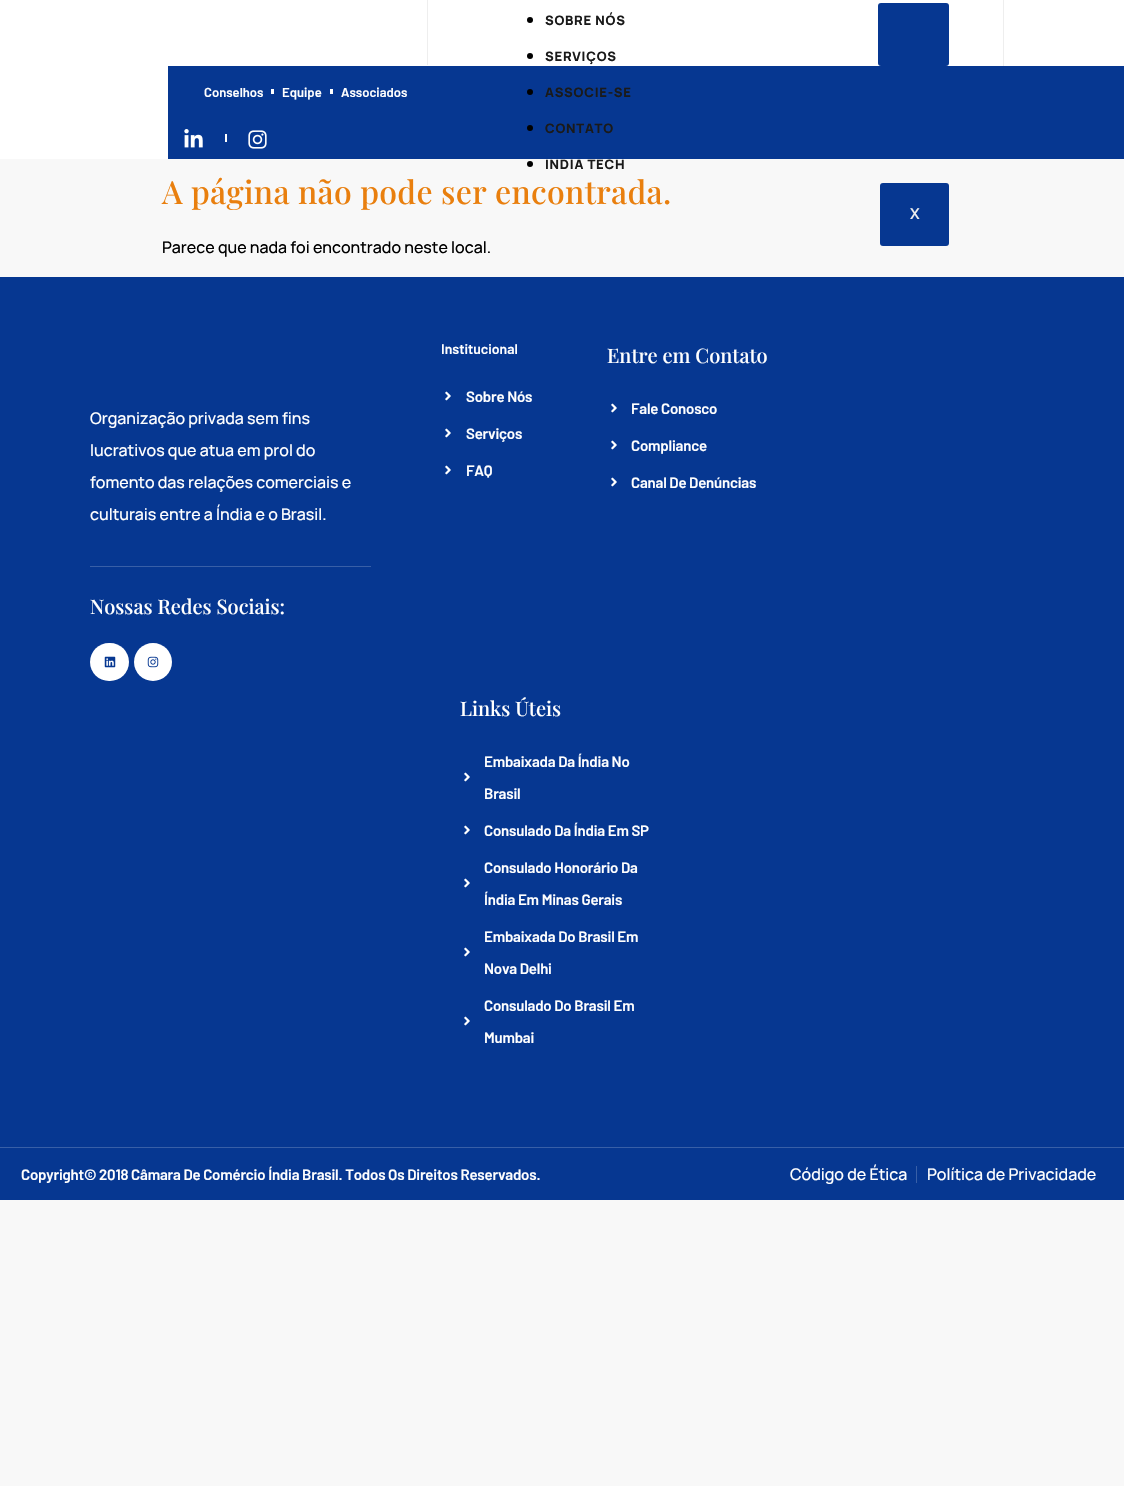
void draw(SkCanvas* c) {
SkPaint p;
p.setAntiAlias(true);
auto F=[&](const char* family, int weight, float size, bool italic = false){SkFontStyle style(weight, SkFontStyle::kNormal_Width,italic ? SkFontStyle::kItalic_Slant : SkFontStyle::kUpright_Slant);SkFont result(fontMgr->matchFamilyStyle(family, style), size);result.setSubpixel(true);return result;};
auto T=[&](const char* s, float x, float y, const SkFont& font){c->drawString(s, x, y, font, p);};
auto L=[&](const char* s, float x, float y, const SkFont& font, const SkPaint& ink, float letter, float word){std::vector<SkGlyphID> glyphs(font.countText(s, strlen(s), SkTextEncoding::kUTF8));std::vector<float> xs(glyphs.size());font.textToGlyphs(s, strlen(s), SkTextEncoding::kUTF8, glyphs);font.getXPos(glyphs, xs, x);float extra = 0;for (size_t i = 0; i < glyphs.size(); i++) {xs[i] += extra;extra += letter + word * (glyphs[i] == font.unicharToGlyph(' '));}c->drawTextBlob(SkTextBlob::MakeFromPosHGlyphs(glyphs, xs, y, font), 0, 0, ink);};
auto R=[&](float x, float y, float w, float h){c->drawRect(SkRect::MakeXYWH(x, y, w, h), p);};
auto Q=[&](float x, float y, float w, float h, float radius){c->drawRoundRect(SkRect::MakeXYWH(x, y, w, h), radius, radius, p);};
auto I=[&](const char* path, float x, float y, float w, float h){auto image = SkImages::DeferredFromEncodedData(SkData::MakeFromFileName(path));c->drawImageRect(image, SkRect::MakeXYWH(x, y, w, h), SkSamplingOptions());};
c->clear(0xfff8f8f8);
p.setColor(0xff063791);
R(168,66,956,93);
p.setColor(0xffffffff);
R(0,66,168,93);
auto f1 = F("Barlow",600,13);
T("Conselhos",204,97,f1);
R(271,89,3,5);
T("Equipe",282,97,f1);
R(330,89,3,5);
T("Associados",341,97,f1);
I("1.png",184,129,19,19);
R(225,134,2,8);
I("2.png",248,130,19,19);
R(0,0,1124,66);
p.setColor(0xffeeeeee);
R(427,0,1,65);
R(1003,0,1,66);
p.setColor(0xff063791);
Q(878,3,71,63,3);
p.setColor(0xff000000);
c->drawCircle(530,20,3,p);
auto f2 = F("Manrope",800,13);
p.setColor(0xff1a1a1a);
L("SOBRE NÓS",545,25,f2,p,.75,0);
p.setColor(0xff000000);
c->drawCircle(530,56,3,p);
p.setColor(0xff1a1a1a);
L("SERVIÇOS",545,61,f2,p,.75,0);
p.setColor(0xff000000);
c->drawCircle(530,92,3,p);
p.setColor(0xff1a1a1a);
L("ASSOCIE-SE",545,97,f2,p,.75,0);
p.setColor(0xff000000);
c->drawCircle(530,128,3,p);
p.setColor(0xff1a1a1a);
L("CONTATO",545,133,f2,p,.75,0);
p.setColor(0xff000000);
c->drawCircle(530,164,3,p);
p.setColor(0xff1a1a1a);
L("INDIA TECH",545,169,f2,p,.75,0);
p.setColor(0xff063791);
Q(880,183,69,63,3);
auto f3 = F("Manrope",600,15);
p.setColor(0xffeeeeee);
T("X",910,219,f3);
auto f4 = F("Playfair Display",500,32);
p.setColor(0xffe97f0e);
L("A página não pode ser encontrada.",162,204,f4,p,.3,0);
auto f5 = F("Manrope",500,16);
p.setColor(0xff000000);
T("Parece que nada foi encontrado neste local.",162,253,f5);
p.setColor(0xff063791);
R(0,277,1124,870);
p.setColor(0xffffffff);
T("Organização privada sem fins",90,424,f5);
T("lucrativos que atua em prol do",90,456,f5);
T("fomento das relações comerciais e",90,488,f5);
T("culturais entre a Índia e o Brasil.",90,520,f5);
p.setColor(0xff385fa7);
R(90,566,281,1);
auto f6 = F("Playfair Display",500,20);
p.setColor(0xffffffff);
T("Nossas Redes Sociais:",90,614,f6);
Q(90,643,39,38,19);
I("3.png",104,656,12,12);
c->drawCircle(153,662,19,p);
I("4.png",147,656,12,12);
auto f7 = F("Barlow",600,14);
T("Institucional",441,354,f7);
I("5.png",445,391,6,10);
auto f8 = F("Barlow",600,15);
L("Sobre Nós",466,402,f8,p,-.2,0);
I("5.png",445,428,6,10);
L("Serviços",466,439,f8,p,-.2,0);
I("5.png",445,465,6,10);
L("FAQ",466,476,f8,p,-.2,0);
T("Entre em Contato",607,363,f6);
I("5.png",611,403,6,10);
L("Fale Conosco",631,414,f8,p,-.2,0);
I("5.png",611,440,6,10);
L("Compliance",631,451,f8,p,-.2,0);
I("5.png",611,477,6,10);
L("Canal De Denúncias",631,488,f8,p,-.2,0);
T("Links Úteis",460,716,f6);
I("5.png",464,772,6,10);
L("Embaixada Da Índia No",484,767,f8,p,-.2,0);
L("Brasil",484,799,f8,p,-.2,0);
I("5.png",464,825,6,10);
L("Consulado Da Índia Em SP",484,836,f8,p,-.2,0);
I("5.png",464,878,6,10);
L("Consulado Honorário Da",484,873,f8,p,-.2,0);
L("Índia Em Minas Gerais",484,905,f8,p,-.2,0);
I("5.png",464,947,6,10);
L("Embaixada Do Brasil Em",484,942,f8,p,-.2,0);
L("Nova Delhi",484,974,f8,p,-.2,0);
I("5.png",464,1016,6,10);
L("Consulado Do Brasil Em",484,1011,f8,p,-.2,0);
L("Mumbai",484,1043,f8,p,-.2,0);
p.setColor(0xff063791);
R(0,1148,1124,52);
p.setColor(0xff385fa7);
R(0,1147,1124,1);
p.setColor(0xffffffff);
L("Copyright© 2018 Câmara De Comércio Índia Brasil. Todos Os Direitos Reservados.",21,1180,f8,p,-.2,0);
T("Código de Ética",790,1180,f5);
p.setColor(0xff385fa7);
R(916,1166,1,17);
p.setColor(0xffffffff);
T("Política de Privacidade",927,1180,f5);
}
